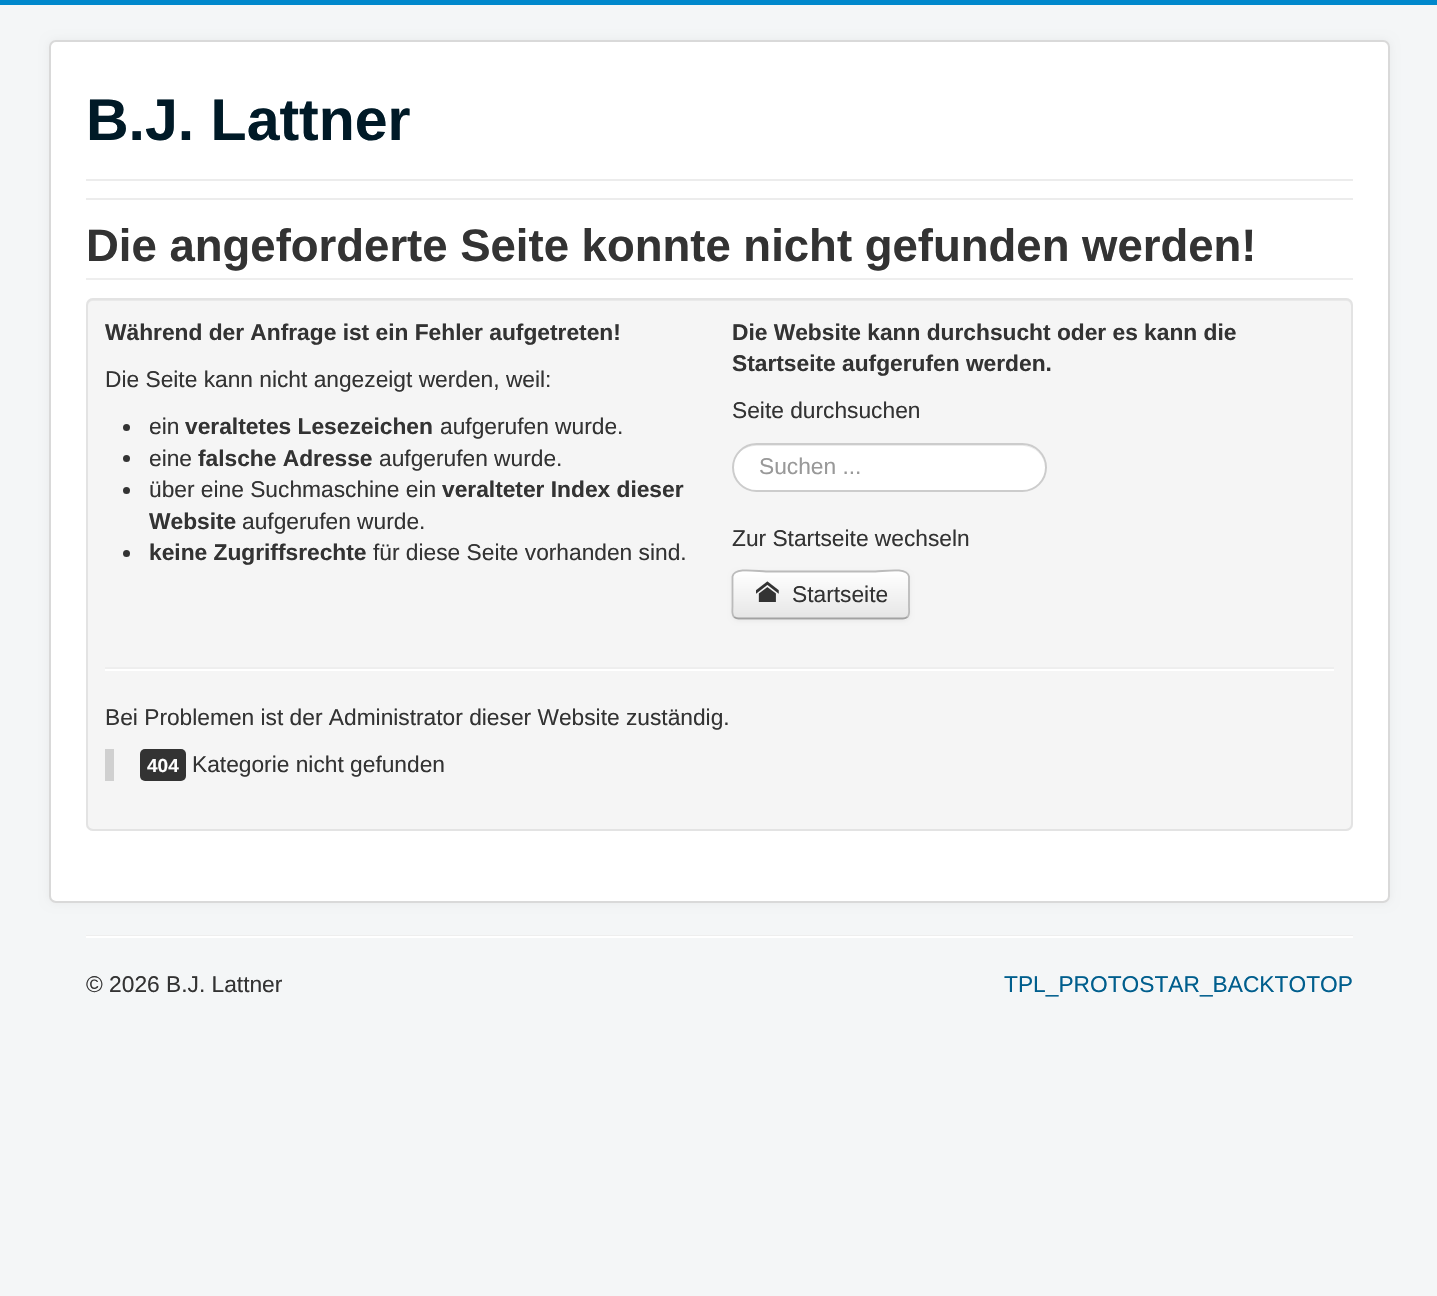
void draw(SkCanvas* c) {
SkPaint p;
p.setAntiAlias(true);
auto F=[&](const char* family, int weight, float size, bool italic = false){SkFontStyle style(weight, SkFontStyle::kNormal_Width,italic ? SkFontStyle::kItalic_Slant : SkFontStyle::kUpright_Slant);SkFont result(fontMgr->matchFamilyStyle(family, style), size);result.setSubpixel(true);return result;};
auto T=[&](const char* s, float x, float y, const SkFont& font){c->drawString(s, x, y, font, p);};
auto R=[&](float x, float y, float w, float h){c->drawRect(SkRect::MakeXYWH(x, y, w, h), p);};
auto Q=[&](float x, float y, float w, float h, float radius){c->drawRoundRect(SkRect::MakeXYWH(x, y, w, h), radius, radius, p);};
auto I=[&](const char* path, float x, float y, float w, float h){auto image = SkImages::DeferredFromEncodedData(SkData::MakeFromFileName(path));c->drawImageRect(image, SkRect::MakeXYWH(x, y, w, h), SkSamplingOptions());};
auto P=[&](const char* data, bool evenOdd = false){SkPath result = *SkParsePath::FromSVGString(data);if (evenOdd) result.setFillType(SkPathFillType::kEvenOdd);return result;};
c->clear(0xfff4f6f7);
p.setColor(0xff0088cc);
R(0,0,1437,5);
p.setColor(0x0d000000);
p.setMaskFilter(SkMaskFilter::MakeBlur(kNormal_SkBlurStyle, 5));
c->drawRoundRect(SkRect::MakeXYWH(49,40,1341,863),7,7,p);
p.setMaskFilter(nullptr);
p.setColor(0xffffffff);
Q(49,40,1341,863,7);
p.setStroke(true);
p.setStrokeWidth(2);
p.setColor(0x26000000);
c->drawRoundRect(SkRect::MakeXYWH(50,41,1339,861),6,6,p);
auto f1 = F("Liberation Sans",700,59);
p.setStroke(false);
p.setColor(0xff001a27);
T("B.J. Lattner",86,140,f1);
p.setColor(0xffececec);
R(86,179,1267,2);
R(86,198,1267,2);
p.setColor(0xffeeeeee);
R(86,278,1267,2);
auto f2 = F("Liberation Sans",700,45.5);
p.setColor(0xff333333);
T("Die angeforderte Seite konnte nicht gefunden werden!",86,261,f2);
p.setColor(0xfff5f5f5);
Q(86,298,1267,533,7);
p.setColor(0xffe9e9e9);
c->drawPath(P("M93 301h1253c3 0 5 2 5 5v-2c0-3-2-5-5-5h-1253c-3 0-5 2-5 5v2c0-3 2-5 5-5z"),p);
p.setStroke(true);
p.setColor(0xffe3e3e3);
c->drawRoundRect(SkRect::MakeXYWH(87,299,1265,531),6,6,p);
auto f3 = F("Liberation Sans",700,22.75);
p.setStroke(false);
p.setColor(0xff333333);
T("Während der Anfrage ist ein Fehler aufgetreten!",105,340,f3);
auto f4 = F("Liberation Sans",400,22.75);
T("Die Seite kann nicht angezeigt werden, weil:",105,387,f4);
c->drawCircle(126.5,427.5,3.5,p);
T("ein",149,434,f4);
T("veraltetes Lesezeichen",185,434,f3);
T("aufgerufen wurde.",440,434,f4);
c->drawCircle(126.5,458.5,3.5,p);
T("eine",149,466,f4);
T("falsche Adresse",198,466,f3);
T("aufgerufen wurde.",379,466,f4);
c->drawCircle(126.5,490.5,3.5,p);
T("über eine Suchmaschine ein",149,497,f4);
T("veralteter Index dieser",442,497,f3);
T("Website",149,529,f3);
T("aufgerufen wurde.",242,529,f4);
c->drawCircle(126.5,553.5,3.5,p);
T("keine Zugriffsrechte",149,560,f3);
T("für diese Seite vorhanden sind.",373,560,f4);
T("Die Website kann durchsucht oder es kann die",732,340,f3);
T("Startseite aufgerufen werden.",732,371,f3);
T("Seite durchsuchen",732,418,f4);
p.setColor(0xffffffff);
Q(732,443,315,49,24.5);
p.setColor(0xffececec);
c->drawPath(P("M756 446h266c13 0 23 10 23 22c1-33-51-23-67-23h-178c-16 0-68-10-67 23c0-12 10-22 23-22z"),p);
p.setStroke(true);
p.setColor(0xffcccccc);
c->drawRoundRect(SkRect::MakeXYWH(733,444,313,47),23.5,23.5,p);
p.setStroke(false);
p.setColor(0xff999999);
T("Suchen ...",759,474,f4);
p.setColor(0xff333333);
T("Zur Startseite wechseln",732,546,f4);
p.setColor(0x0d000000);
p.setMaskFilter(SkMaskFilter::MakeBlur(kNormal_SkBlurStyle, 2));
c->drawRoundRect(SkRect::MakeXYWH(732,572,178,49),7,7,p);
p.setMaskFilter(nullptr);
p.setColor(0xfff5f5f5);
Q(732,571,178,49,7);
c->save();
c->clipPath(P("M739 571h164c4 0 7 3 7 7v35c0 4-3 7-7 7h-164c-4 0-7-3-7-7v-35c0-4 3-7 7-7z"),true);
{
const SkColor colors[] = {0xffffffff,0xffe6e6e6};
const float stops[] = {0,1};
const SkPoint ends[] = {{821,572}, {821,618}};
p.setShader(SkGradientShader::MakeLinear(ends, colors, stops, 2, SkTileMode::kClamp));
p.setAlpha(255);
}
R(732,572,178,46);
c->restore();
p.setStroke(true);
p.setStrokeWidth(1.8);
p.setShader(nullptr);
p.setColor(0xffa2a2a2);
c->drawPath(P("M907.5 617c-1.5 1-3 1.5-4.5 1.5h-164.5c-1.5 0-3-.5-4.5-1.5"),p);
p.setColor(0xffbbbbbb);
c->drawPath(P("M734 617c-2.5-3-1.5-7-1.5-10.5v-30c2-10 25.5-5 33.5-5h109.5c8 0 31.5-5 33.5 5v30c0 3.5 1 7.5-1.5 10.5"),p);
I("1.png",756,581,23,21);
p.setStroke(false);
p.setColor(0xff333333);
T("Startseite",792,602,f4);
p.setColor(0xffeeeeee);
R(105,667,1229,2);
p.setColor(0xffffffff);
R(105,669,1229,2);
p.setColor(0xff333333);
T("Bei Problemen ist der Administrator dieser Website zuständig.",105,725,f4);
p.setColor(0xffd0d0d0);
R(105,749,9,32);
p.setColor(0xff333333);
Q(140,749,46,32,5);
auto f5 = F("Liberation Sans",700,19);
p.setColor(0xffffffff);
T("404",147,772,f5);
p.setColor(0xff333333);
T("Kategorie nicht gefunden",192,772,f4);
p.setColor(0xffeeeeee);
R(86,935,1267,1);
p.setColor(0xffffffff);
R(86,936,1267,2);
p.setColor(0xff333333);
T("© 2026 B.J. Lattner",86,992,f4);
p.setColor(0xff005e8d);
T("TPL_PROTOSTAR_BACKTOTOP",1004,992,f4);
}
